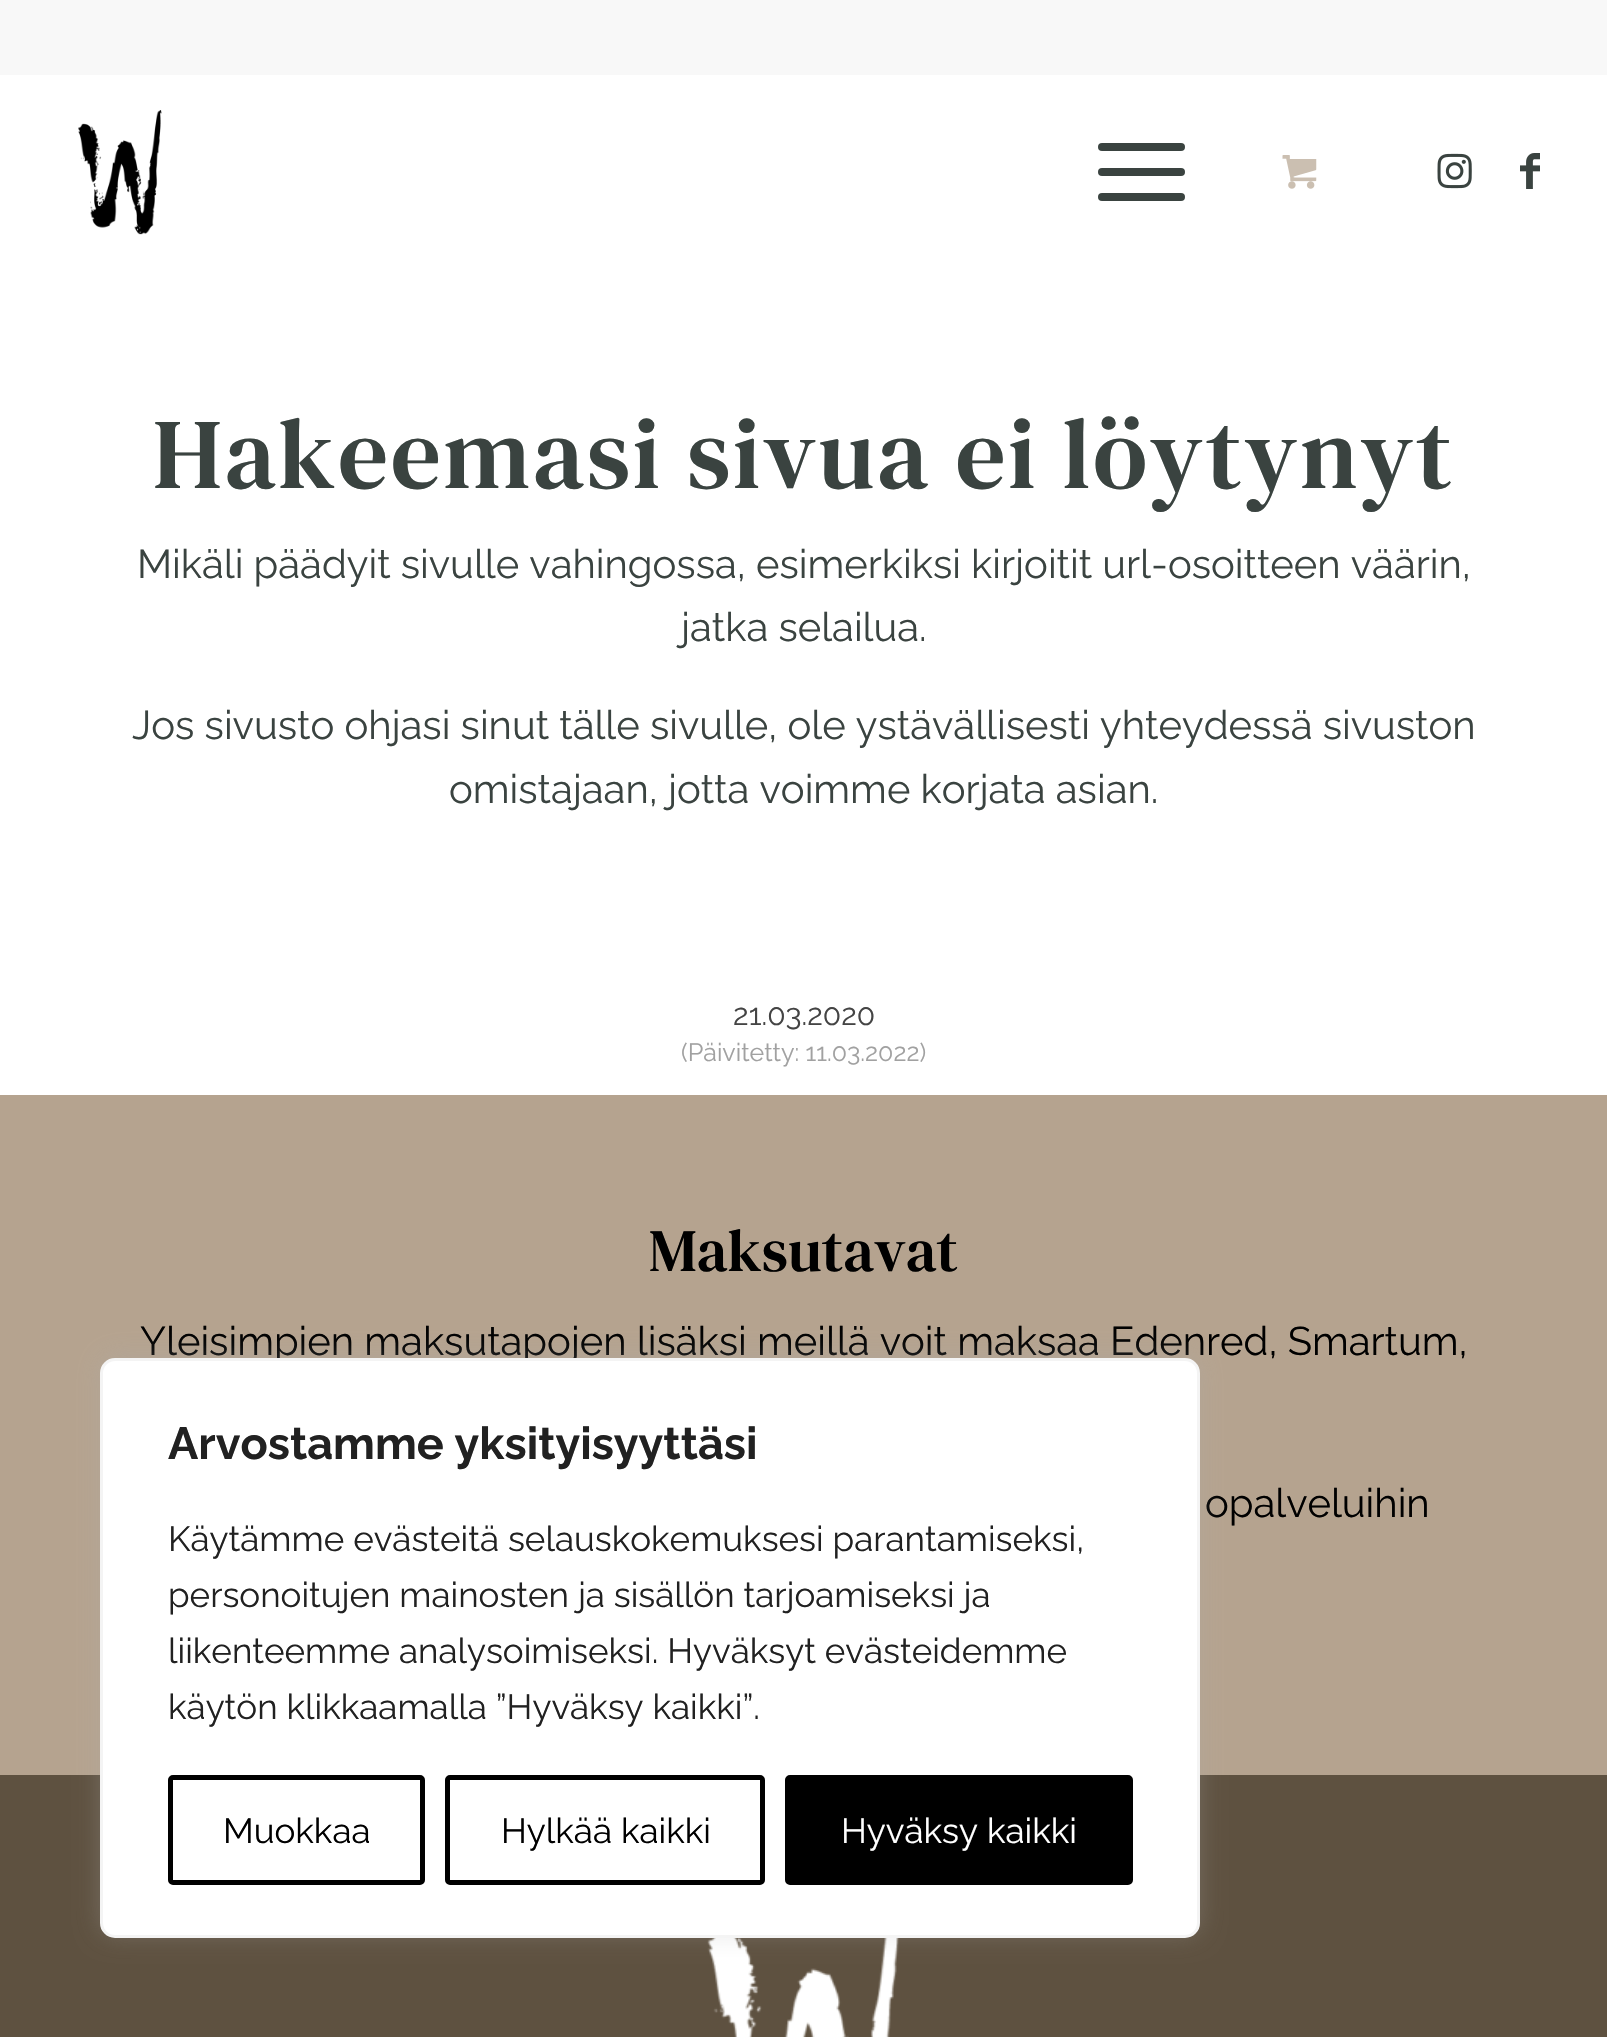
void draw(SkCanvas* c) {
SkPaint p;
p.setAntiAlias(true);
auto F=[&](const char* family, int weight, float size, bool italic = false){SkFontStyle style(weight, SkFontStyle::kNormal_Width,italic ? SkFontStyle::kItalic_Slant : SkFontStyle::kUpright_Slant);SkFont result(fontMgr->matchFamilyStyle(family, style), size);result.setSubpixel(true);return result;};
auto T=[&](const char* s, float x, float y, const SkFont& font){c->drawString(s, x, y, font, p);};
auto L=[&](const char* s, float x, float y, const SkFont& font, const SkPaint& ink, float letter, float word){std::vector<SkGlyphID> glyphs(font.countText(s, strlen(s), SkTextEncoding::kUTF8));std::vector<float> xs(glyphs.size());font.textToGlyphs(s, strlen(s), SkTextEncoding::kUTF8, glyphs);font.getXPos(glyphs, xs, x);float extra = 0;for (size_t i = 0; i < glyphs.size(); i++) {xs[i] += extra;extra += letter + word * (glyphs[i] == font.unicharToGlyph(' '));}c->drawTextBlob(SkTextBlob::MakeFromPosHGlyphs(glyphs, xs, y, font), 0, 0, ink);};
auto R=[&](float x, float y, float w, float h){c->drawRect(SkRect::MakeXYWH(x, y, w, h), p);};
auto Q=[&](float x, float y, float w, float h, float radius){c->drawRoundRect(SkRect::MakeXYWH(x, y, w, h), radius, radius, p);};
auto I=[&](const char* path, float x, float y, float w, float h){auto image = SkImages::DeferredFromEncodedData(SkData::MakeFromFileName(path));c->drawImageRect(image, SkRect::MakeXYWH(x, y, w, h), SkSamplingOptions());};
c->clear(0xffffffff);
p.setColor(0xfff8f8f8);
R(0,0,1607,75);
I("1.png",78,110,84,125);
p.setColor(0xff3a4340);
Q(1098,168,87,8,4);
Q(1098,143,87,8,4);
Q(1098,193,87,8,4);
I("2.png",1282,155,35,34);
I("3.png",1437,153,35,36);
I("4.png",1520,153,20,36);
auto f1 = F("DM Serif Text",400,100);
L("Hakeemasi sivua ei löytynyt",153,488,f1,p,2.5,0);
auto f2 = F("Raleway",400,40);
T("Mikäli päädyit sivulle vahingossa, esimerkiksi kirjoitit url-osoitteen väärin,",137,578,f2);
T("jatka selailua.",681,641,f2);
T("Jos sivusto ohjasi sinut tälle sivulle, ole ystävällisesti yhteydessä sivuston",132,739,f2);
T("omistajaan, jotta voimme korjata asian.",449,803,f2);
auto f3 = F("Raleway",400,30);
p.setColor(0xff444444);
T("21.03.2020",733,1025,f3);
auto f4 = F("Raleway",400,25);
p.setColor(0xffa1a1a1);
T("(Päivitetty: 11.03.2022)",681,1061,f4);
p.setColor(0xffb5a38f);
R(0,1095,1607,680);
auto f5 = F("DM Serif Text",400,60);
p.setColor(0xff000000);
T("Maksutavat",649,1271,f5);
T("Yleisimpien maksutapojen lisäksi meillä voit maksaa Edenred, Smartum,",140,1355,f2);
T("opalveluihin",1205,1517,f2);
p.setColor(0xff5e5140);
R(0,1775,1607,262);
I("5.png",707,1938,192,99);
p.setColor(0x4dacabab);
p.setMaskFilter(SkMaskFilter::MakeBlur(kNormal_SkBlurStyle, 12.5));
c->drawRoundRect(SkRect::MakeXYWH(100,1355,1100,580),15,15,p);
p.setMaskFilter(nullptr);
p.setColor(0xffffffff);
c->drawRoundRect(SkRect::MakeXYWH(101.5,1359.5,1097,577),13.5,13.5,p);
p.setStroke(true);
p.setStrokeWidth(3);
p.setColor(0xfff4f4f4);
c->drawRoundRect(SkRect::MakeXYWH(101.5,1359.5,1097,577),13.5,13.5,p);
auto f6 = F("Raleway",700,45);
p.setStroke(false);
p.setColor(0xff212121);
T("Arvostamme yksityisyyttäsi",168,1459,f6);
auto f7 = F("Raleway",400,35);
T("Käytämme evästeitä selauskokemuksesi parantamiseksi,",168,1551,f7);
T("personoitujen mainosten ja sisällön tarjoamiseksi ja",168,1607,f7);
T("liikenteemme analysoimiseksi. Hyväksyt evästeidemme",168,1663,f7);
T("käytön klikkaamalla ”Hyväksy kaikki”.",168,1719,f7);
p.setStroke(true);
p.setStrokeWidth(5);
p.setColor(0xff000000);
c->drawRoundRect(SkRect::MakeXYWH(170.5,1777.5,252,105),2.5,2.5,p);
p.setStroke(false);
T("Muokkaa",223,1843,f7);
p.setStroke(true);
c->drawRoundRect(SkRect::MakeXYWH(447.5,1777.5,315,105),2.5,2.5,p);
p.setStroke(false);
T("Hylkää kaikki",501,1843,f7);
c->drawRoundRect(SkRect::MakeXYWH(787.5,1777.5,343,105),2.5,2.5,p);
p.setStroke(true);
c->drawRoundRect(SkRect::MakeXYWH(787.5,1777.5,343,105),2.5,2.5,p);
p.setStroke(false);
p.setColor(0xffffffff);
T("Hyväksy kaikki",841,1843,f7);
}
